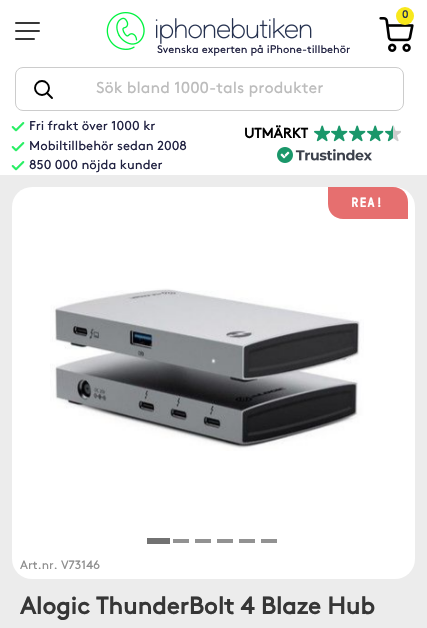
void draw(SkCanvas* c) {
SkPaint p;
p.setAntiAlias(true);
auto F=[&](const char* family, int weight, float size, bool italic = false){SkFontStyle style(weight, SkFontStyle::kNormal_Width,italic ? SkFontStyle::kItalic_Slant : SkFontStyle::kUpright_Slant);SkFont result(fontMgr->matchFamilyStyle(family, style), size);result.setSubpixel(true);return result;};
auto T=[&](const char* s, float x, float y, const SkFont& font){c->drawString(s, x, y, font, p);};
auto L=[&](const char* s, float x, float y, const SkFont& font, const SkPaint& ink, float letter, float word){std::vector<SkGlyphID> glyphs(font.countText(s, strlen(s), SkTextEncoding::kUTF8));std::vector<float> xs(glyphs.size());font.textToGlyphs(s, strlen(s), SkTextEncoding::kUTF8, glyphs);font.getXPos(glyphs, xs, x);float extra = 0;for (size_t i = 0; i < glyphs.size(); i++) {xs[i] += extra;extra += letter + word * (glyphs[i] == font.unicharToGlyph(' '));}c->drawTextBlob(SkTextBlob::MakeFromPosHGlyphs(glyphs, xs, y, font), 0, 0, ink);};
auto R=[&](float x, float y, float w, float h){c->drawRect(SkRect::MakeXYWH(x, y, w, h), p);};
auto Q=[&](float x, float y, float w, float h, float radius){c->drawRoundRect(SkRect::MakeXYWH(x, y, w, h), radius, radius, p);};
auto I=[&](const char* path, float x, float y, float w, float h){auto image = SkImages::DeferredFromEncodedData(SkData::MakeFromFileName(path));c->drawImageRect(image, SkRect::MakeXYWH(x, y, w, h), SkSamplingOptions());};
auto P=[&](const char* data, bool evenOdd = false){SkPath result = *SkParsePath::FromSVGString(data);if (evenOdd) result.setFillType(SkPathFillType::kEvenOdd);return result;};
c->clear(0xffececec);
p.setColor(0xffffffff);
R(0,0,427,175);
I("1.png",379,17,35,35);
p.setColor(0xfff8e81c);
c->drawCircle(405,16,9,p);
auto f1 = F("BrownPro",400,11);
p.setColor(0xff25314f);
T("0",402,18,f1);
p.setColor(0xff363636);
Q(15,22,25,2,1);
Q(15,30,25,2,1);
Q(15,38,20,2,1);
I("2.png",106,12,206,38);
p.setColor(0xff202141);
T("Svenska experten på iPhone-tillbehör",157,53,f1);
p.setStroke(true);
p.setStrokeWidth(1);
p.setColor(0xffcccccc);
c->drawRoundRect(SkRect::MakeXYWH(15.5,67.5,388,43),7.5,7.5,p);
p.setStrokeWidth(1.9);
p.setColor(0xff000000);
c->drawCircle(42,88,7,p);
p.setStrokeCap(SkPaint::kRound_Cap);
p.setStrokeJoin(SkPaint::kRound_Join);
c->drawPath(P("M52 98l-5-5"),p);
auto f2 = F("BrownPro",400,16);
p.setStroke(false);
p.setColor(0xffbcbcbc);
T("Sök bland 1000-tals produkter",96,93,f2);
I("3.png",11,122,14,10);
auto f3 = F("BrownPro",400,13);
p.setColor(0xff202141);
T("Fri frakt över 1000 kr",29,130,f3);
I("3.png",11,142,14,10);
T("Mobiltillbehör sedan 2008",29,150,f3);
I("3.png",11,161,14,10);
T("850 000 nöjda kunder",29,169,f3);
auto f4 = F("BrownPro",700,14);
p.setColor(0xff000000);
T("UTMÄRKT",244,138,f4);
I("4.png",314,125,16,17);
I("5.png",331,125,17,17);
I("5.png",349,125,17,17);
I("5.png",367,125,17,17);
I("6.png",385,125,16,17);
I("7.png",277,147,95,16);
p.setColor(0xffffffff);
Q(12,187,403,392,20);
p.setColor(0xffe66f6f);
c->drawPath(P("M328 187h65c8.5 0 15 6.5 15 15v17h-65c-8.5 0-15-6.5-15-15z"),p);
auto f5 = F("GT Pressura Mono",700,13);
p.setColor(0xffffffff);
L("REA!",351,207,f5,p,1,0);
I("8.png",50,288,314,163);
p.setColor(0xff727272);
R(147,538,23,6);
p.setColor(0xff929292);
R(173,539,16,4);
R(195,539,16,4);
R(217,539,16,4);
R(239,539,16,4);
R(261,539,16,4);
auto f6 = F("BrownPro",400,12);
p.setColor(0xff8e8e8e);
T("Art.nr. V73146",20,569,f6);
auto f7 = F("BrownPro",700,24);
p.setColor(0xff363636);
T("Alogic ThunderBolt 4 Blaze Hub",20,614,f7);
}
